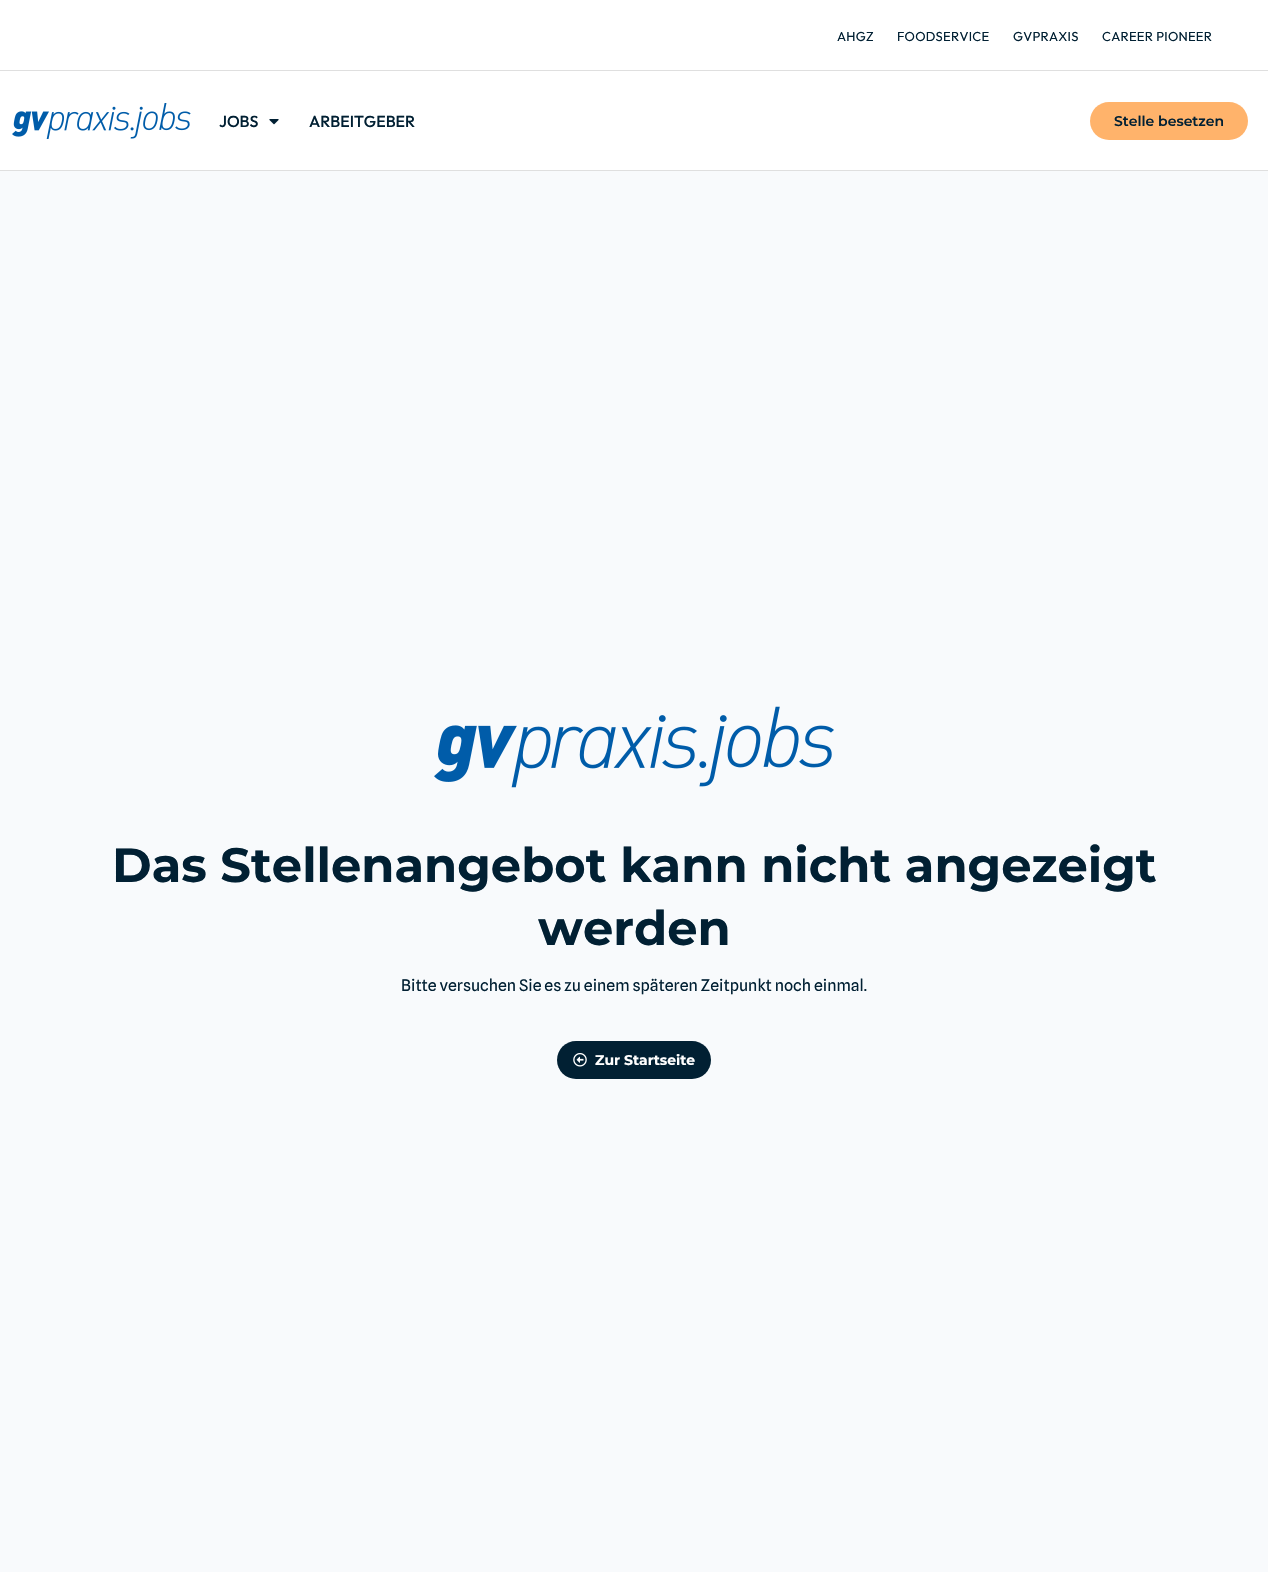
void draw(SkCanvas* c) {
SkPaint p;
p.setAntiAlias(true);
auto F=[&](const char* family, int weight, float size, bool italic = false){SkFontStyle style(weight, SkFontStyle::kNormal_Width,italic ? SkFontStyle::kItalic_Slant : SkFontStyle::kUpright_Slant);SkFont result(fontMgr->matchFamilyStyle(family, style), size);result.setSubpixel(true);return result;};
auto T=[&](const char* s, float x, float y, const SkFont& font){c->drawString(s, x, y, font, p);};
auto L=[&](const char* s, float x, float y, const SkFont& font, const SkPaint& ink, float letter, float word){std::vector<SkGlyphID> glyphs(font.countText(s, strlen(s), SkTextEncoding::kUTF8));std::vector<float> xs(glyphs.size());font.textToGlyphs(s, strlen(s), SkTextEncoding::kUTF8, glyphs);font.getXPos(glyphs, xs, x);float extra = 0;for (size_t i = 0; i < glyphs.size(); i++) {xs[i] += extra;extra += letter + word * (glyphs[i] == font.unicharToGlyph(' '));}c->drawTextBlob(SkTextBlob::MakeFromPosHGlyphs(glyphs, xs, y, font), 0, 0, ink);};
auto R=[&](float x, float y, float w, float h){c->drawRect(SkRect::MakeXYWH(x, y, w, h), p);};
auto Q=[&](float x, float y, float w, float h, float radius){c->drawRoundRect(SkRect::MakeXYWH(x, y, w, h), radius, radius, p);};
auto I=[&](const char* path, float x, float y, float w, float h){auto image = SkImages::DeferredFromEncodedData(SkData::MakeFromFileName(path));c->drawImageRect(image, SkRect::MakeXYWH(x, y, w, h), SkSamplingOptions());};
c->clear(0xffffffff);
p.setColor(0xffdfdfdf);
R(0,70,1268,1);
auto f1 = F("Outfit",400,13);
p.setColor(0xff012033);
L("AHGZ",837,41,f1,p,.25,0);
L("FOODSERVICE",897,41,f1,p,.25,0);
L("GVPRAXIS",1013,41,f1,p,.25,0);
L("CAREER PIONEER",1102,41,f1,p,.25,0);
p.setColor(0xffdfdfdf);
R(0,170,1268,1);
I("1.png",12,103,179,36);
auto f2 = F("Outfit",500,16);
p.setColor(0xff012033);
T("JOBS",219,127,f2);
I("2.png",269,119,10,6);
T("ARBEITGEBER",309,127,f2);
p.setColor(0xffffb36b);
Q(1090,102,158,38,19);
auto f3 = F("Montserrat",600,14);
p.setColor(0xff012033);
T("Stelle besetzen",1114,126,f3);
p.setColor(0xfff8fafc);
R(0,171,1268,1401);
I("3.png",434,706,400,82);
auto f4 = F("Montserrat",700,48);
p.setColor(0xff012033);
T("Das Stellenangebot kann nicht angezeigt",112,882,f4);
T("werden",538,945,f4);
auto f5 = F("Spline Sans",400,16);
T("Bitte versuchen Sie es zu einem späteren Zeitpunkt noch einmal.",401,991,f5);
Q(557,1041,154,38,19);
I("4.png",573,1053,14,14);
auto f6 = F("Montserrat",700,14);
p.setColor(0xffffffff);
T("Zur Startseite",595,1065,f6);
}
